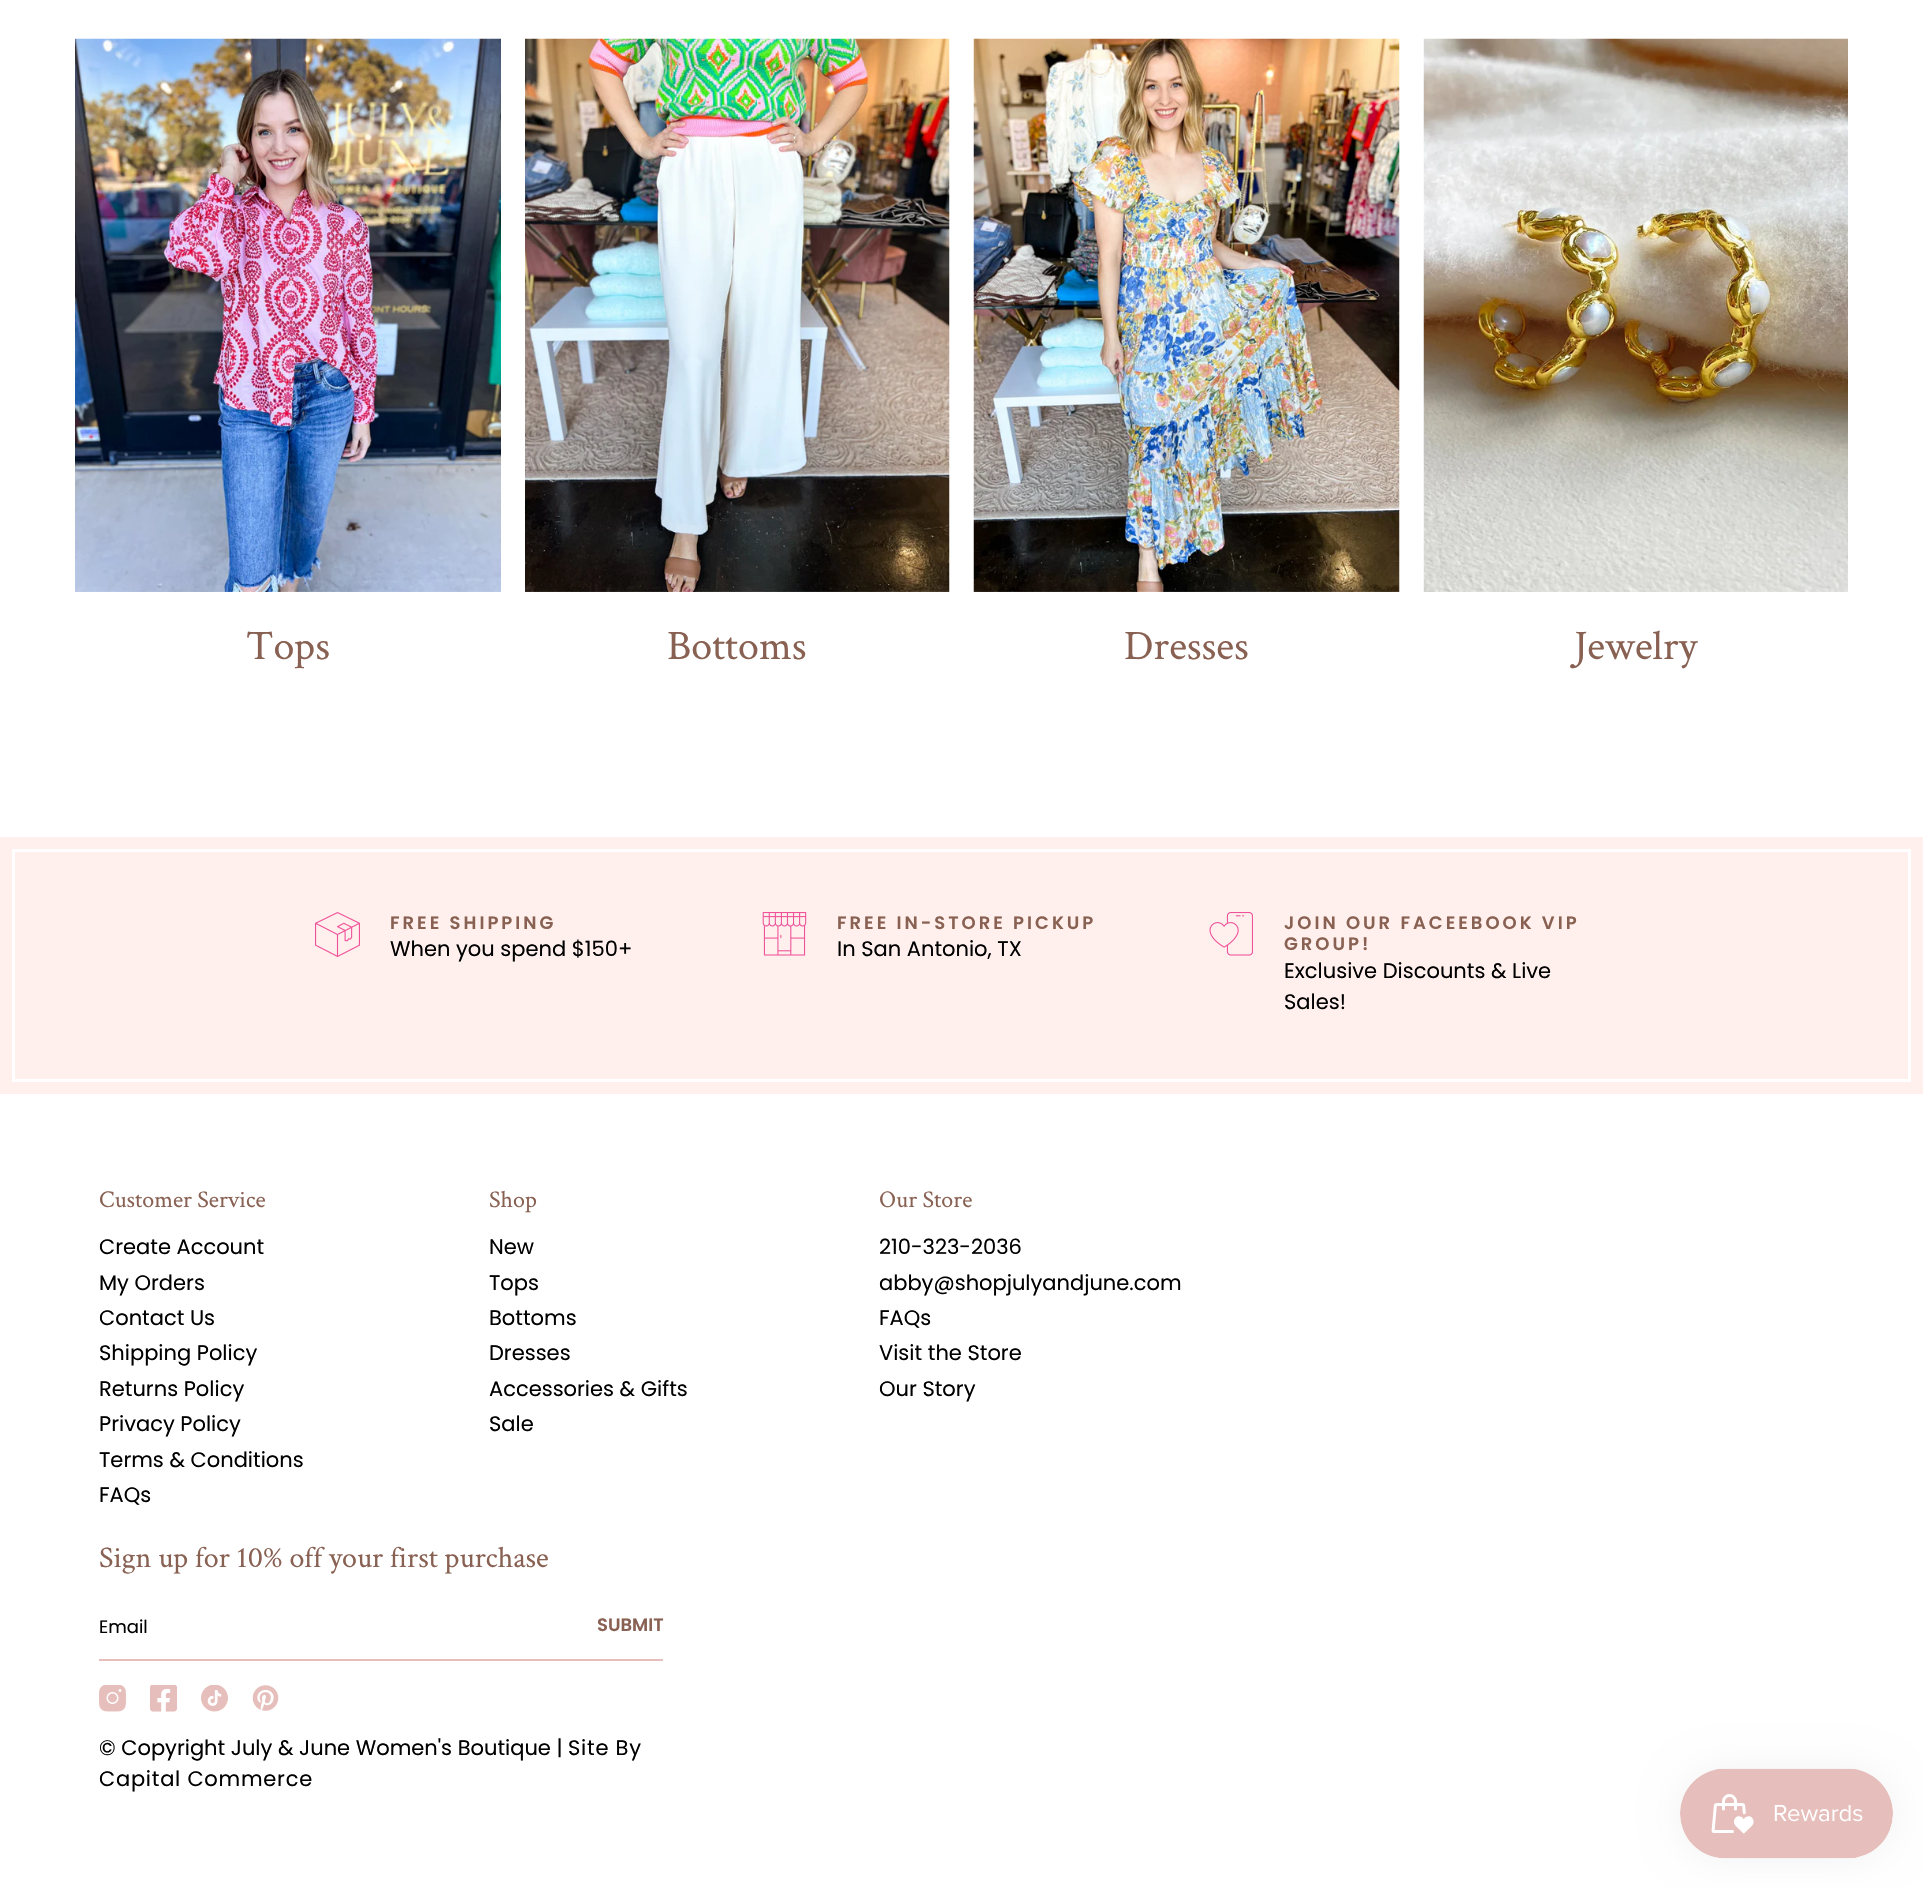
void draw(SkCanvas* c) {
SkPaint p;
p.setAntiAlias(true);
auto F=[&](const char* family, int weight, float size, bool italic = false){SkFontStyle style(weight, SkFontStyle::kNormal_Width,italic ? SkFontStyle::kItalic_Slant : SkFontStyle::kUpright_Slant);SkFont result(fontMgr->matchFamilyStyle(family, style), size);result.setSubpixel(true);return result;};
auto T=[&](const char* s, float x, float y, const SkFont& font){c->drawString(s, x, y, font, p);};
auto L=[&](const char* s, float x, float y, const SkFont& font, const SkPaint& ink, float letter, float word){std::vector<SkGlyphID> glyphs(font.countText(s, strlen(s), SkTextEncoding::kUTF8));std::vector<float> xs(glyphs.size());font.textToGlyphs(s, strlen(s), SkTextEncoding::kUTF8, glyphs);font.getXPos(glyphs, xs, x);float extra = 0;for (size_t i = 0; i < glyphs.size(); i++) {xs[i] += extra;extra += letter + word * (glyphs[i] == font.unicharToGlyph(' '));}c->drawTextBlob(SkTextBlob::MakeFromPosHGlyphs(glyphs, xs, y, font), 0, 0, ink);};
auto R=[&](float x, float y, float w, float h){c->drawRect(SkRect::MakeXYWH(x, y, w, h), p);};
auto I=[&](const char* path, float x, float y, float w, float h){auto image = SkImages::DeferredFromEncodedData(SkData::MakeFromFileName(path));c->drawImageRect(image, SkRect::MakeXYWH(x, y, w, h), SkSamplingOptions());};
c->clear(0xffffffff);
I("1.png",75,38,426,554);
auto f1 = F("Crimson Text",400,42);
p.setColor(0xff896153);
T("Tops",246,659,f1);
I("2.png",525,38,425,554);
T("Bottoms",667,659,f1);
I("3.png",973,38,427,554);
T("Dresses",1124,659,f1);
I("4.png",1423,38,425,554);
T("Jewelry",1574,659,f1);
p.setColor(0xfffff0ed);
R(0,837,1923,257);
p.setStroke(true);
p.setStrokeWidth(3);
p.setColor(0xffffffff);
c->drawRect(SkRect::MakeXYWH(13.5,850.5,1896,230),p);
I("5.png",315,912,45,45);
auto f2 = F("Poppins",600,18);
p.setStroke(false);
p.setColor(0xff896153);
L("FREE SHIPPING",390,929,f2,p,3,0);
auto f3 = F("Poppins",400,21);
p.setColor(0xff000000);
T("When you spend $150+",390,956,f3);
I("6.png",762,912,45,44);
p.setColor(0xff896153);
L("FREE IN-STORE PICKUP",837,929,f2,p,3,0);
p.setColor(0xff000000);
T("In San Antonio, TX",837,956,f3);
I("7.png",1209,912,44,44);
p.setColor(0xff896153);
L("JOIN OUR FACEEBOOK VIP",1284,929,f2,p,3,0);
L("GROUP!",1284,950,f2,p,3,0);
p.setColor(0xff000000);
T("Exclusive Discounts & Live",1284,978,f3);
T("Sales!",1284,1009,f3);
auto f4 = F("Crimson Text",400,24);
p.setColor(0xff896153);
T("Customer Service",99,1207,f4);
p.setColor(0xff000000);
T("Create Account",99,1254,f3);
T("My Orders",99,1290,f3);
T("Contact Us",99,1325,f3);
T("Shipping Policy",99,1360,f3);
T("Returns Policy",99,1396,f3);
T("Privacy Policy",99,1431,f3);
T("Terms & Conditions",99,1467,f3);
T("FAQs",99,1502,f3);
p.setColor(0xff896153);
T("Shop",489,1207,f4);
p.setColor(0xff000000);
T("New",489,1254,f3);
T("Tops",489,1290,f3);
T("Bottoms",489,1325,f3);
T("Dresses",489,1360,f3);
T("Accessories & Gifts",489,1396,f3);
T("Sale",489,1431,f3);
p.setColor(0xff896153);
T("Our Store",879,1207,f4);
p.setColor(0xff000000);
T("210-323-2036",879,1254,f3);
T("abby@shopjulyandjune.com",879,1290,f3);
T("FAQs",879,1325,f3);
T("Visit the Store",879,1360,f3);
T("Our Story",879,1396,f3);
auto f5 = F("Crimson Text",400,30);
p.setColor(0xff896153);
T("Sign up for 10% off your first purchase",99,1567,f5);
p.setColor(0xffe6bebb);
R(99,1659,564,2);
auto f6 = F("Poppins",400,18);
p.setColor(0xff000000);
T("Email",99,1633,f6);
p.setColor(0xff896153);
T("SUBMIT",597,1631,f2);
I("8.png",99,1685,27,27);
I("9.png",150,1685,27,27);
I("10.png",201,1685,27,27);
I("11.png",252,1685,27,26);
p.setColor(0xff000000);
T("© Copyright July & June Women's Boutique |",99,1755,f3);
L("Site By",568,1755,f3,p,.75,0);
L("Capital Commerce",99,1786,f3,p,.75,0);
p.setColor(0x0d000000);
p.setMaskFilter(SkMaskFilter::MakeBlur(kNormal_SkBlurStyle, 19));
c->drawRoundRect(SkRect::MakeXYWH(1680,1769,213,90),45,45,p);
p.setMaskFilter(nullptr);
I("12.png",1680,1768,213,91);
}
